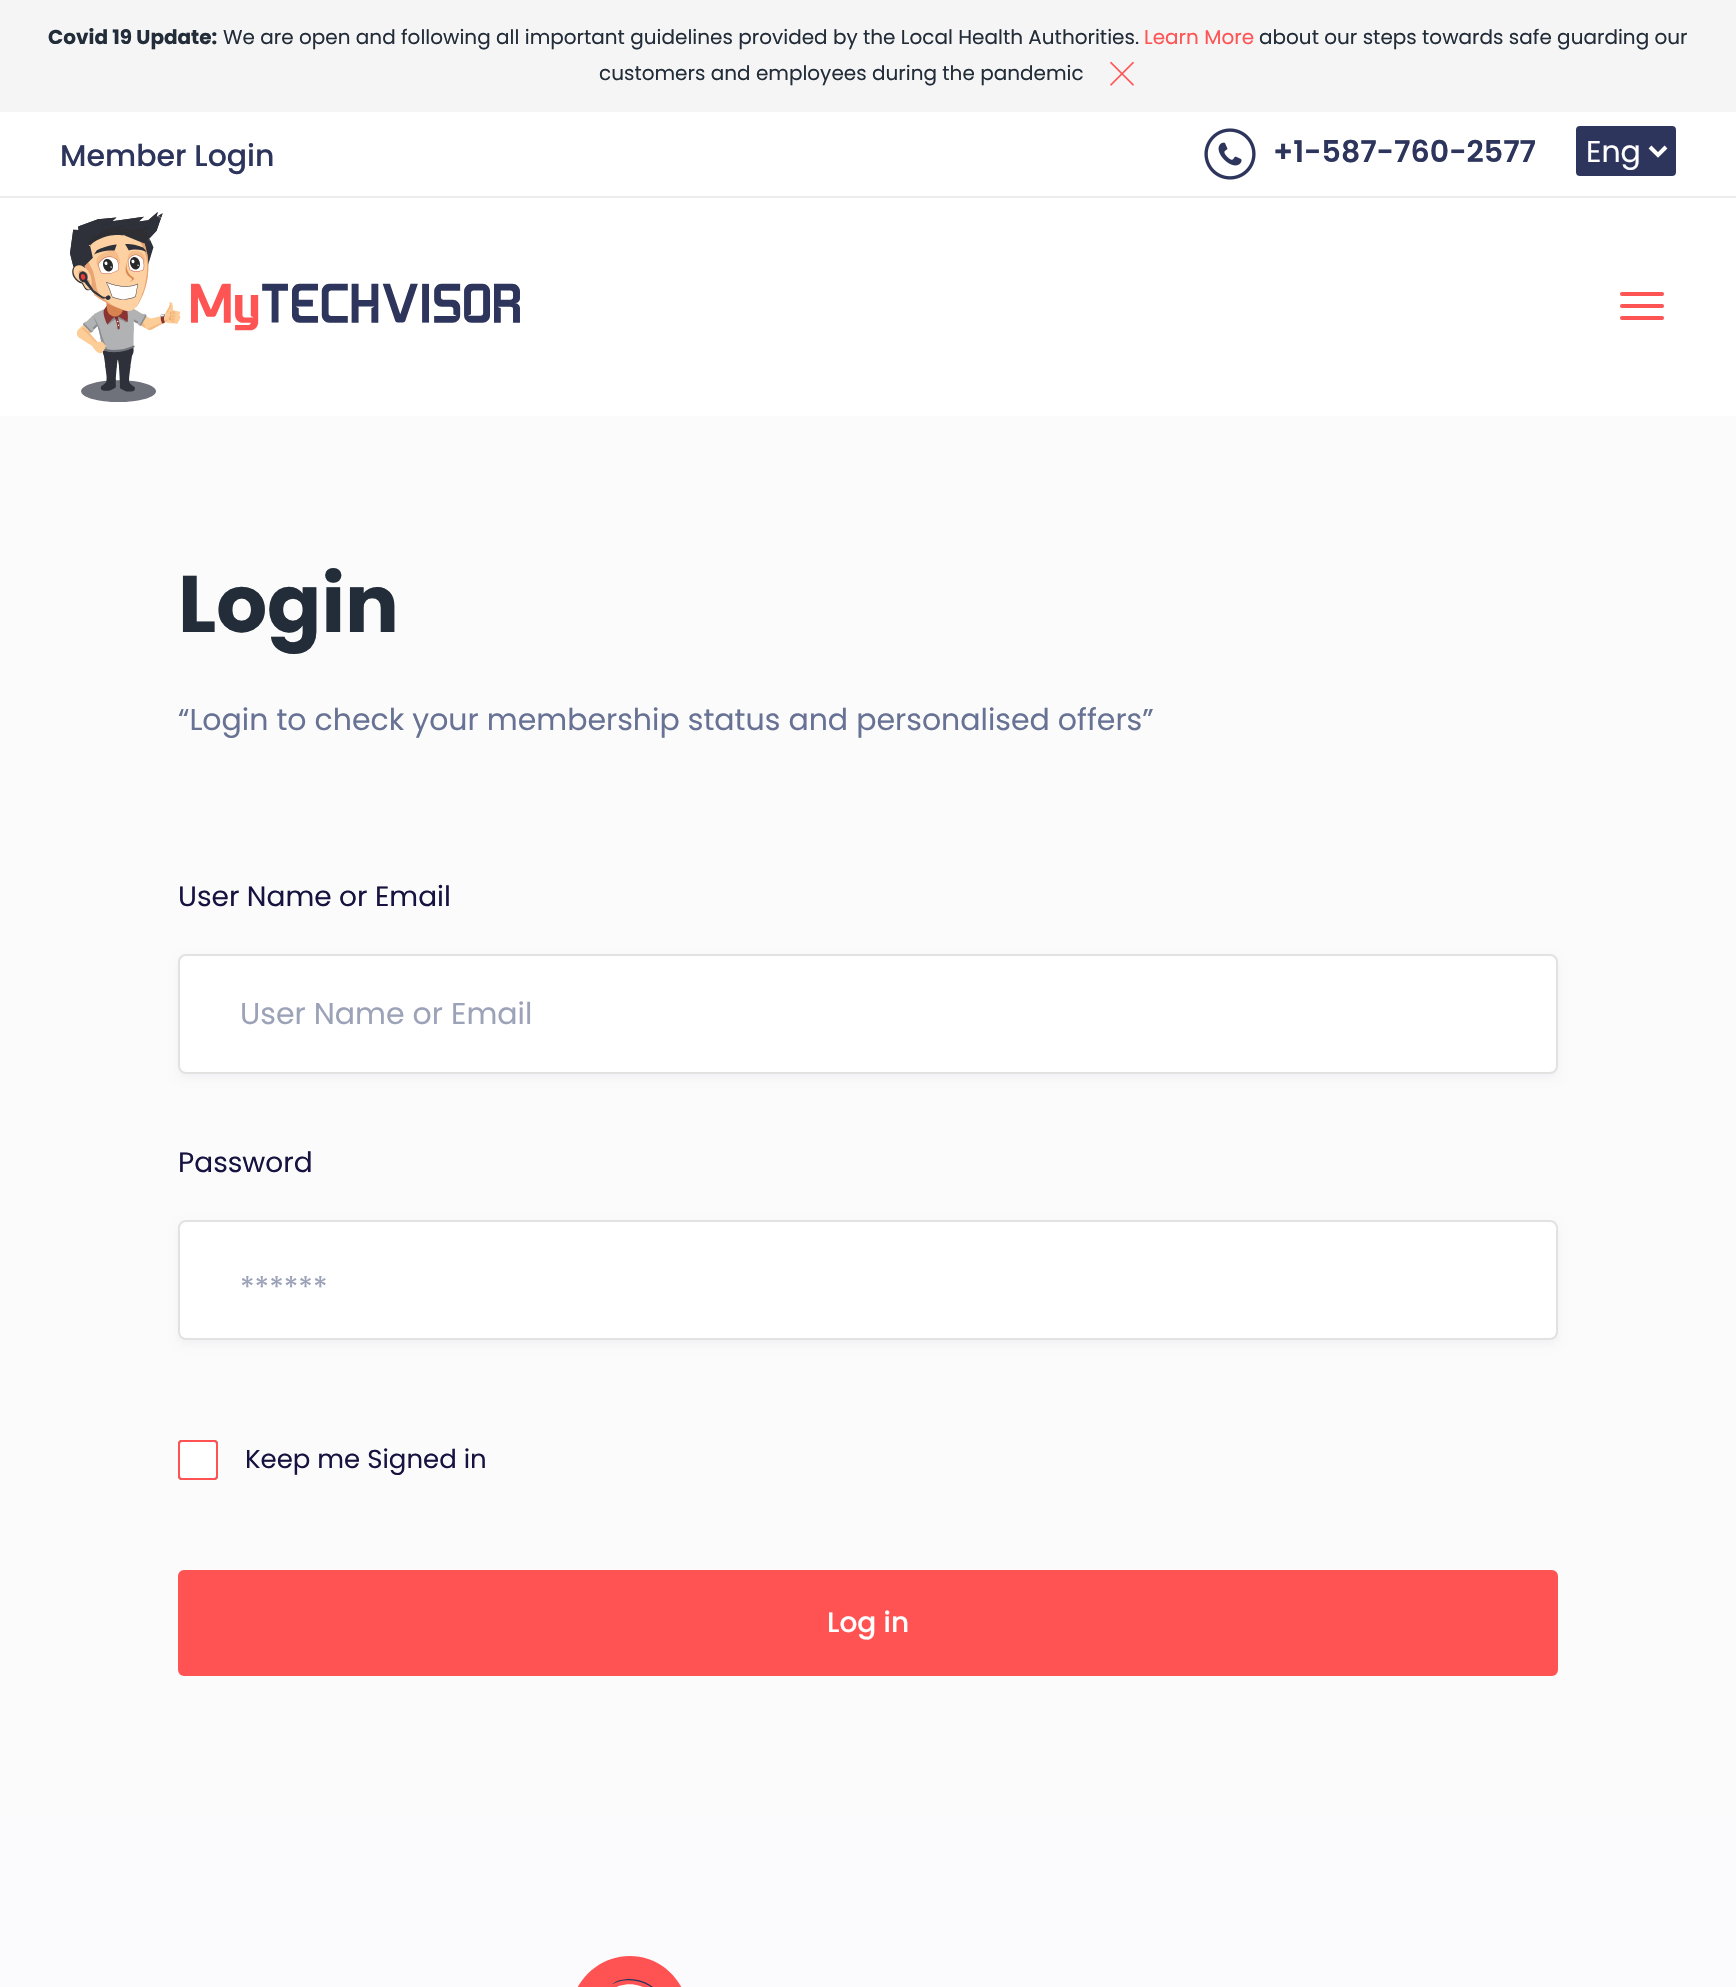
void draw(SkCanvas* c) {
SkPaint p;
p.setAntiAlias(true);
auto F=[&](const char* family, int weight, float size, bool italic = false){SkFontStyle style(weight, SkFontStyle::kNormal_Width,italic ? SkFontStyle::kItalic_Slant : SkFontStyle::kUpright_Slant);SkFont result(fontMgr->matchFamilyStyle(family, style), size);result.setSubpixel(true);return result;};
auto T=[&](const char* s, float x, float y, const SkFont& font){c->drawString(s, x, y, font, p);};
auto R=[&](float x, float y, float w, float h){c->drawRect(SkRect::MakeXYWH(x, y, w, h), p);};
auto Q=[&](float x, float y, float w, float h, float radius){c->drawRoundRect(SkRect::MakeXYWH(x, y, w, h), radius, radius, p);};
auto I=[&](const char* path, float x, float y, float w, float h){auto image = SkImages::DeferredFromEncodedData(SkData::MakeFromFileName(path));c->drawImageRect(image, SkRect::MakeXYWH(x, y, w, h), SkSamplingOptions());};
auto P=[&](const char* data, bool evenOdd = false){SkPath result = *SkParsePath::FromSVGString(data);if (evenOdd) result.setFillType(SkPathFillType::kEvenOdd);return result;};
c->clear(0xffffffff);
p.setColor(0xfff5f5f5);
R(0,0,1736,112);
auto f1 = F("Poppins",700,20);
p.setColor(0xff222d39);
T("Covid 19 Update:",48,44,f1);
auto f2 = F("Poppins",400,20);
T("We are open and following all important guidelines provided by the Local Health Authorities.",223,44,f2);
p.setColor(0xffff5454);
T("Learn More",1144,44,f2);
p.setColor(0xff222d39);
T("about our steps towards safe guarding our",1259,44,f2);
T("customers and employees during the pandemic",599,80,f2);
I("1.png",1110,61,24,25);
p.setColor(0xffececec);
R(0,196,1736,2);
auto f3 = F("Poppins",500,30);
p.setColor(0xff2d355c);
T("Member Login",60,166,f3);
I("2.png",1204,128,52,52);
auto f4 = F("Poppins",600,30);
T("+1-587-760-2577",1273,162,f4);
c->drawRoundRect(SkRect::MakeXYWH(1577,127,98,48),3,3,p);
p.setStroke(true);
p.setStrokeWidth(2);
c->drawRoundRect(SkRect::MakeXYWH(1577,127,98,48),3,3,p);
p.setStrokeWidth(4);
p.setColor(0xffffffff);
c->drawPath(P("M1650 147l8 8l8-8"),p);
auto f5 = F("Poppins",400,30);
p.setStroke(false);
T("Eng",1586,162,f5);
I("3.png",70,212,450,190);
p.setColor(0xffff5454);
Q(1620,292,44,4,2);
Q(1620,304,44,4,2);
Q(1620,316,44,4,2);
p.setColor(0xfffbfbfd);
R(0,1816,1736,171);
p.setColor(0xfffbfbfb);
R(0,416,1736,1400);
auto f6 = F("Poppins",700,80);
p.setColor(0xff222d39);
T("Login",178,632,f6);
p.setColor(0xff677294);
T("“Login to check your membership status and personalised offers”",178,730,f5);
auto f7 = F("Poppins",400,28);
p.setColor(0xff161341);
T("User Name or Email",178,906,f7);
p.setColor(0x0a0c002e);
p.setMaskFilter(SkMaskFilter::MakeBlur(kNormal_SkBlurStyle, 4));
c->drawRoundRect(SkRect::MakeXYWH(178,958,1380,120),8,8,p);
p.setMaskFilter(nullptr);
p.setColor(0xffffffff);
c->drawRoundRect(SkRect::MakeXYWH(179,955,1378,118),7,7,p);
p.setStroke(true);
p.setStrokeWidth(2);
p.setColor(0xffe2e2e2);
c->drawRoundRect(SkRect::MakeXYWH(179,955,1378,118),7,7,p);
p.setStroke(false);
p.setColor(0xff9ca3b9);
T("User Name or Email",240,1024,f5);
p.setColor(0xff161341);
T("Password",178,1172,f7);
p.setColor(0x0a0c002e);
p.setMaskFilter(SkMaskFilter::MakeBlur(kNormal_SkBlurStyle, 4));
c->drawRoundRect(SkRect::MakeXYWH(178,1224,1380,120),8,8,p);
p.setMaskFilter(nullptr);
p.setColor(0xffffffff);
c->drawRoundRect(SkRect::MakeXYWH(179,1221,1378,118),7,7,p);
p.setStroke(true);
p.setColor(0xffe2e2e2);
c->drawRoundRect(SkRect::MakeXYWH(179,1221,1378,118),7,7,p);
p.setStroke(false);
p.setColor(0xff9ca3b9);
T("******",240,1298,f5);
p.setStroke(true);
p.setColor(0xff767676);
c->drawRoundRect(SkRect::MakeXYWH(179,1441,38,38),3,3,p);
p.setStroke(false);
p.setColor(0xffffffff);
c->drawRoundRect(SkRect::MakeXYWH(179,1441,38,38),3,3,p);
p.setStroke(true);
p.setColor(0xffff5353);
c->drawRoundRect(SkRect::MakeXYWH(179,1441,38,38),3,3,p);
auto f8 = F("Poppins",400,26);
p.setStroke(false);
p.setColor(0xff161341);
T("Keep me Signed in",245,1468,f8);
p.setColor(0xffff5353);
c->drawRoundRect(SkRect::MakeXYWH(179,1571,1378,104),5,5,p);
p.setStroke(true);
p.setColor(0xffff5454);
c->drawRoundRect(SkRect::MakeXYWH(179,1571,1378,104),5,5,p);
auto f9 = F("Poppins",500,28);
p.setStroke(false);
p.setColor(0xffffffff);
T("Log in",827,1632,f9);
I("4.png",577,1956,105,31);
}
